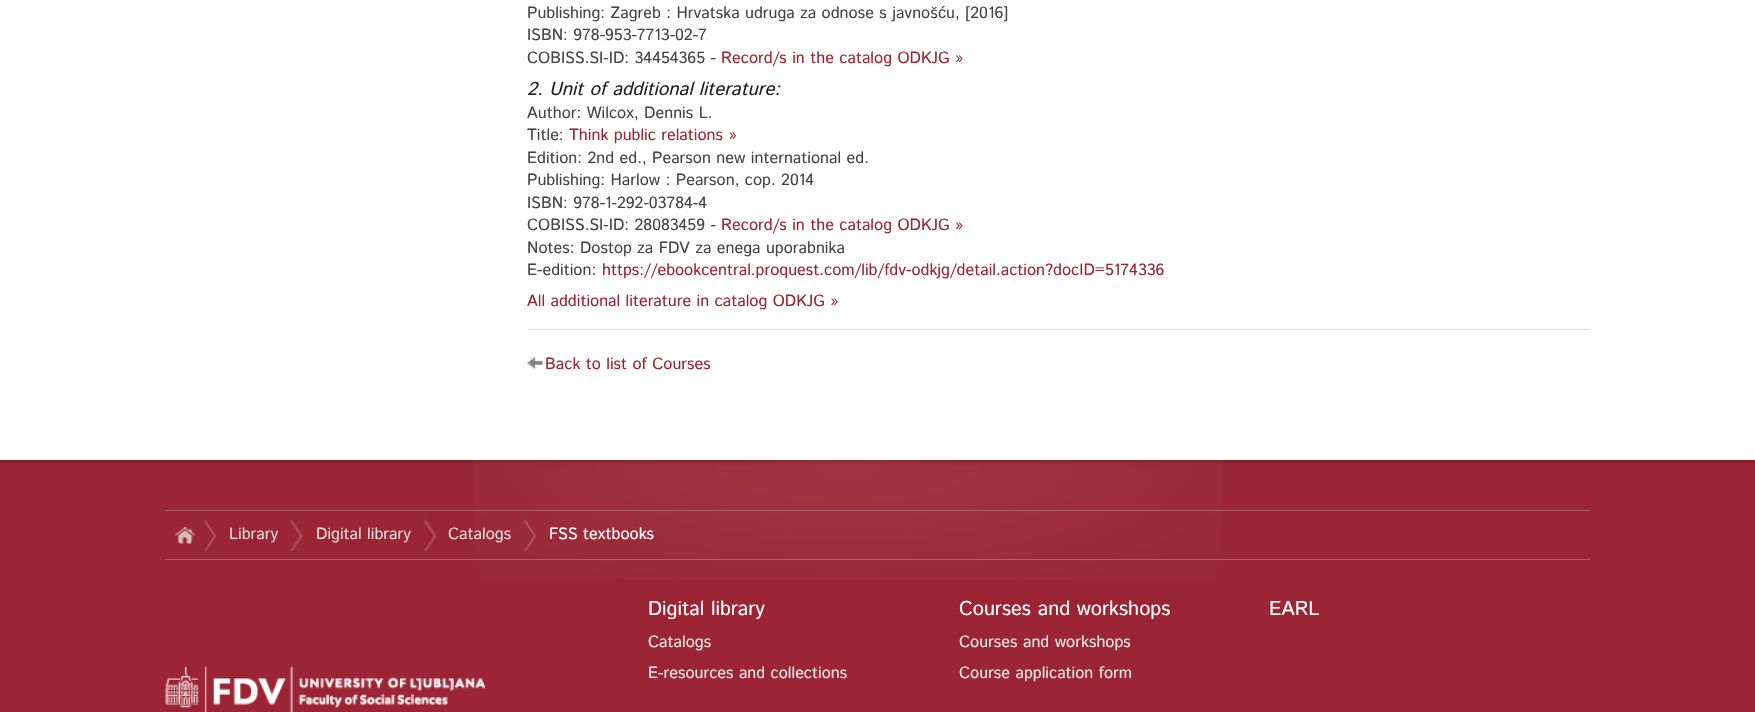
void draw(SkCanvas* c) {
SkPaint p;
p.setAntiAlias(true);
auto F=[&](const char* family, int weight, float size, bool italic = false){SkFontStyle style(weight, SkFontStyle::kNormal_Width,italic ? SkFontStyle::kItalic_Slant : SkFontStyle::kUpright_Slant);SkFont result(fontMgr->matchFamilyStyle(family, style), size);result.setSubpixel(true);return result;};
auto T=[&](const char* s, float x, float y, const SkFont& font){c->drawString(s, x, y, font, p);};
auto R=[&](float x, float y, float w, float h){c->drawRect(SkRect::MakeXYWH(x, y, w, h), p);};
auto I=[&](const char* path, float x, float y, float w, float h){auto image = SkImages::DeferredFromEncodedData(SkData::MakeFromFileName(path));c->drawImageRect(image, SkRect::MakeXYWH(x, y, w, h), SkSamplingOptions());};
c->clear(0xff9b2534);
I("2.png",474,460,748,120);
p.setColor(0x26000000);
p.setMaskFilter(SkMaskFilter::MakeBlur(kNormal_SkBlurStyle, 1));
c->drawRect(SkRect::MakeXYWH(0,-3,1755,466),p);
p.setMaskFilter(nullptr);
p.setColor(0xffffffff);
R(0,0,1755,460);
auto f1 = F("Istok Web",400,16.25);
p.setColor(0xff444444);
T("Publishing: Zagreb : Hrvatska udruga za odnose s javnoš",527,18,f1);
auto f2 = F("Liberation Sans",400,16.25);
T("ć",938,18,f2);
T("u, [2016]",946,18,f1);
T("ISBN: 978-953-7713-02-7",527,40,f1);
T("COBISS.SI-ID: 34454365 -",527,63,f1);
p.setColor(0xff9b2534);
T("Record/s in the catalog ODKJG »",721,63,f1);
auto f3 = F("Istok Web",400,18.75,true);
p.setColor(0xff202020);
T("2. Unit of additional literature:",527,95,f3);
p.setColor(0xff444444);
T("Author: Wilcox, Dennis L.",527,118,f1);
T("Title:",527,140,f1);
p.setColor(0xff9b2534);
T("Think public relations »",569,140,f1);
p.setColor(0xff444444);
T("Edition: 2nd ed., Pearson new international ed.",527,163,f1);
T("Publishing: Harlow : Pearson, cop. 2014",527,185,f1);
T("ISBN: 978-1-292-03784-4",527,208,f1);
T("COBISS.SI-ID: 28083459 -",527,230,f1);
p.setColor(0xff9b2534);
T("Record/s in the catalog ODKJG »",721,230,f1);
p.setColor(0xff444444);
T("Notes: Dostop za FDV za enega uporabnika",527,253,f1);
T("E-edition:",527,275,f1);
p.setColor(0xff9b2534);
T("https://ebookcentral.proquest.com/lib/fdv-odkjg/detail.action?docID=5174336",602,275,f1);
T("All additional literature in catalog ODKJG »",527,306,f1);
p.setColor(0xffdddddd);
R(528,329,1062,1);
I("1.png",527,357,16,13);
p.setColor(0xff9b2534);
T("Back to list of Courses",545,369,f1);
p.setColor(0xffac606a);
R(165,510,1425,1);
R(165,559,1425,1);
I("3.png",175,527,20,17);
I("4.png",203,519,14,32);
p.setColor(0xffdddddd);
T("Library",229,539,f1);
I("5.png",290,519,13,32);
T("Digital library",316,539,f1);
I("4.png",423,519,14,32);
T("Catalogs",448,539,f1);
I("6.png",523,519,14,32);
p.setColor(0xffffffff);
T("FSS textbooks",549,539,f1);
auto f4 = F("Istok Web",400,20);
T("Digital library",648,615,f4);
p.setColor(0xffe6e6e6);
T("Catalogs",648,647,f1);
T("E-resources and collections",648,678,f1);
p.setColor(0xffffffff);
T("Courses and workshops",959,615,f4);
p.setColor(0xffe6e6e6);
T("Courses and workshops",959,647,f1);
T("Course application form",959,678,f1);
p.setColor(0xffffffff);
T("EARL",1269,615,f4);
I("7.png",165,666,320,46);
}
